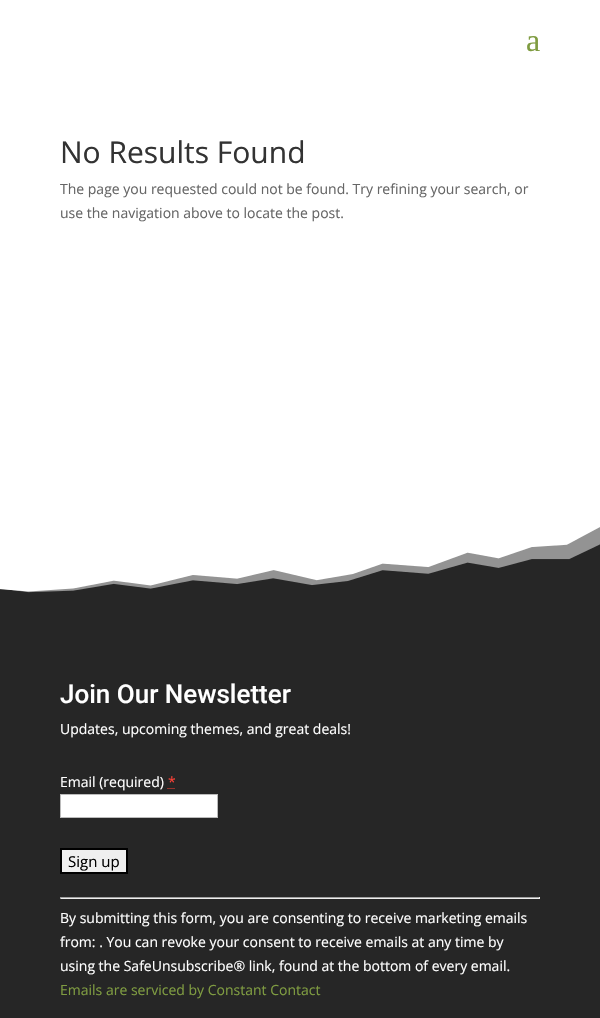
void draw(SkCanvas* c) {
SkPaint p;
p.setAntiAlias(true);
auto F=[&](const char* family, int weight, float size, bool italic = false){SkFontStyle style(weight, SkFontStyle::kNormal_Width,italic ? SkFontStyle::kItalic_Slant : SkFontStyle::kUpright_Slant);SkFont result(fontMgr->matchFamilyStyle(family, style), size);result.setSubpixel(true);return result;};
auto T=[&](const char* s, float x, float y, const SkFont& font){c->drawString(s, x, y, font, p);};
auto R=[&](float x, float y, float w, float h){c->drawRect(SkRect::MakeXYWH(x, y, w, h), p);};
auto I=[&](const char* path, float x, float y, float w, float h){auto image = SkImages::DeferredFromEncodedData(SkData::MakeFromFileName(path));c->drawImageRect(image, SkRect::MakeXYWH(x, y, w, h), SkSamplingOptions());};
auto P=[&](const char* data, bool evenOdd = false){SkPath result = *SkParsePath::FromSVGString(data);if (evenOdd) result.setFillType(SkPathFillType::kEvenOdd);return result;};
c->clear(0xffffffff);
auto f1 = F("Liberation Serif",400,32);
p.setColor(0xff7f9c41);
T("a",526,51,f1);
auto f2 = F("Open Sans",400,30);
p.setColor(0xff333333);
T("No Results Found",60,163,f2);
auto f3 = F("Open Sans",400,14);
p.setColor(0xff666666);
T("The page you requested could not be found. Try refining your search, or",60,194,f3);
T("use the navigation above to locate the post.",60,218,f3);
p.setColor(0xff262626);
R(0,527,600,491);
I("1.png",0,527,600,66);
auto f4 = F("Roboto",500,26);
p.setColor(0xffffffff);
T("Join Our Newsletter",60,703,f4);
T("Updates, upcoming themes, and great deals!",60,734,f3);
T("Email (required)",60,787,f3);
p.setColor(0xffff4136);
T("*",168,787,f3);
p.setStroke(true);
p.setStrokeWidth(1);
p.setPathEffect(SkDashPathEffect::Make({{1,1}}, 0));
c->drawPath(P("M167.5 788.5h8"),p);
p.setPathEffect(nullptr);
p.setStroke(false);
p.setColor(0xffffffff);
c->drawRect(SkRect::MakeXYWH(60.5,794.5,157,23),p);
p.setStroke(true);
p.setColor(0xffbbbbbb);
c->drawRect(SkRect::MakeXYWH(60.5,794.5,157,23),p);
p.setStroke(false);
p.setColor(0xffefefef);
c->drawRect(SkRect::MakeXYWH(61,849,66,24),p);
p.setStroke(true);
p.setStrokeWidth(2);
p.setColor(0xff000000);
c->drawRect(SkRect::MakeXYWH(61,849,66,24),p);
auto f5 = F("Open Sans",400,15);
p.setStroke(false);
T("Sign up",68,867,f5);
p.setColor(0xff9f9f9f);
R(60,897,480,1);
p.setColor(0xffeeeeee);
R(539,897,1,2);
R(60,898,480,1);
p.setColor(0xff9f9f9f);
R(60,897,1,2);
p.setColor(0xffffffff);
T("By submitting this form, you are consenting to receive marketing emails",60,923,f3);
T("from: . You can revoke your consent to receive emails at any time by",60,947,f3);
T("using the SafeUnsubscribe® link, found at the bottom of every email.",60,971,f3);
p.setColor(0xff7f9c41);
T("Emails are serviced by Constant Contact",60,995,f3);
}
